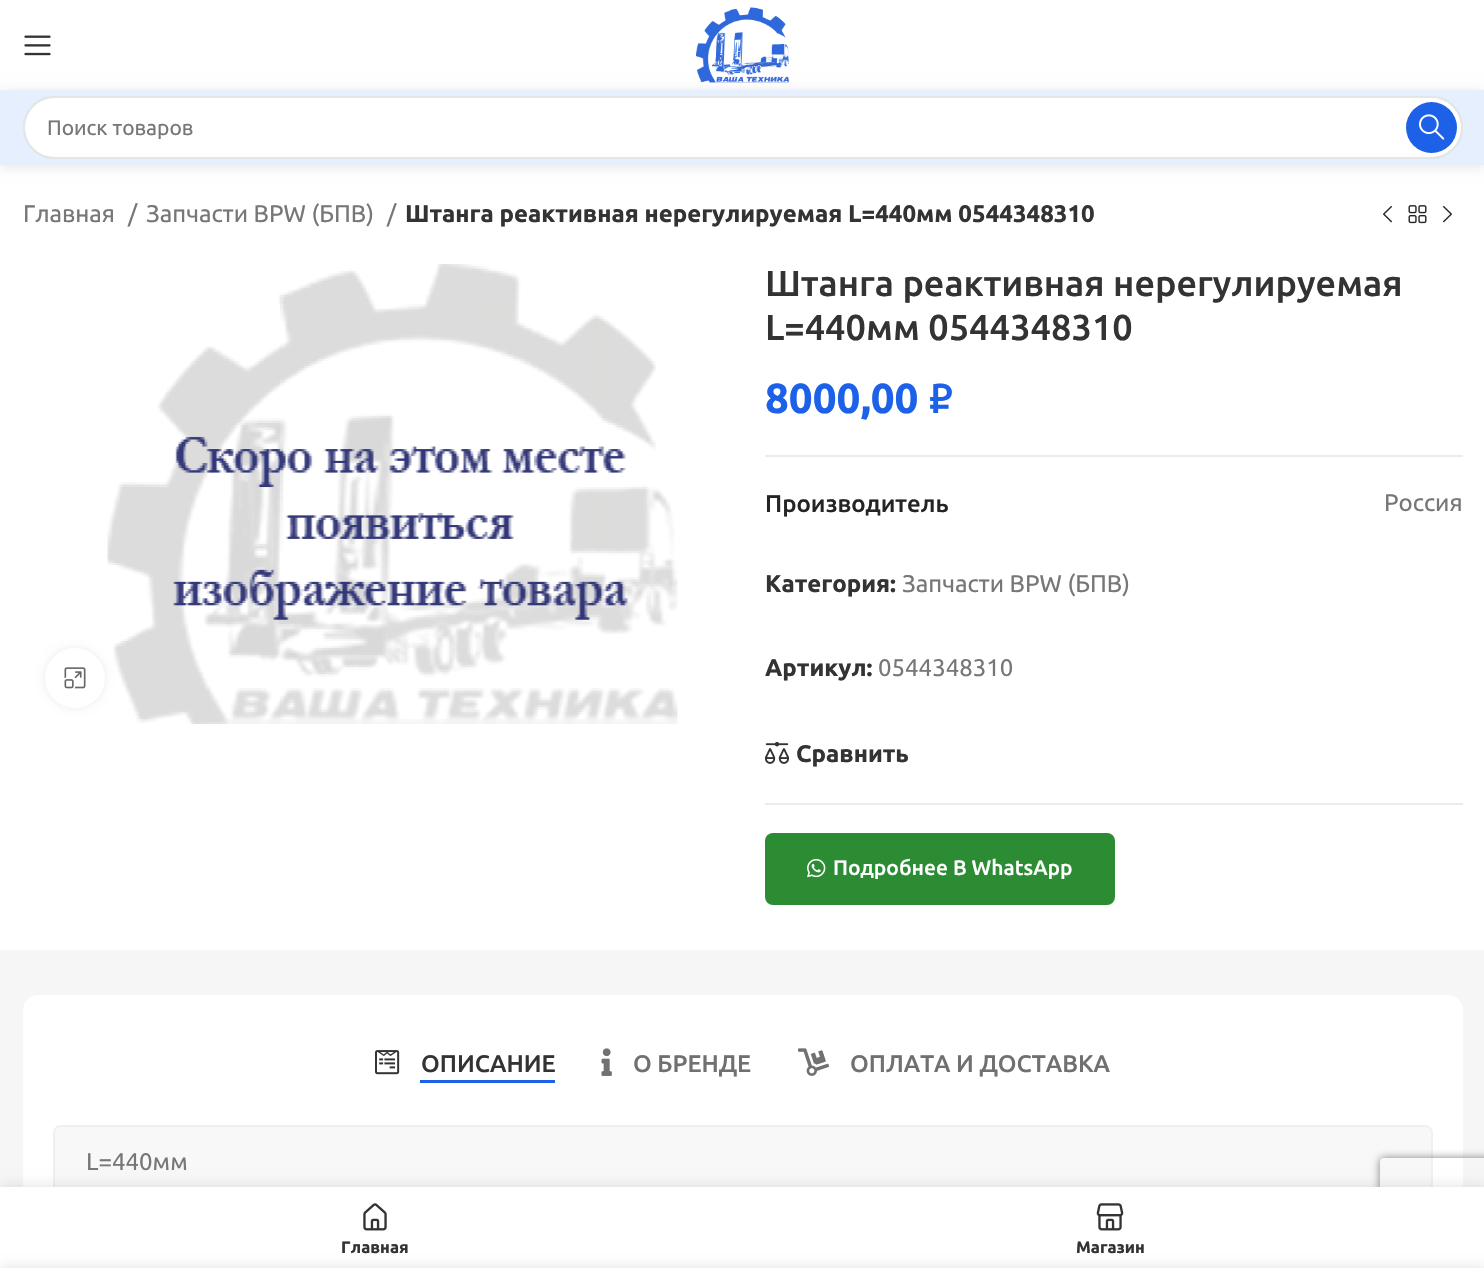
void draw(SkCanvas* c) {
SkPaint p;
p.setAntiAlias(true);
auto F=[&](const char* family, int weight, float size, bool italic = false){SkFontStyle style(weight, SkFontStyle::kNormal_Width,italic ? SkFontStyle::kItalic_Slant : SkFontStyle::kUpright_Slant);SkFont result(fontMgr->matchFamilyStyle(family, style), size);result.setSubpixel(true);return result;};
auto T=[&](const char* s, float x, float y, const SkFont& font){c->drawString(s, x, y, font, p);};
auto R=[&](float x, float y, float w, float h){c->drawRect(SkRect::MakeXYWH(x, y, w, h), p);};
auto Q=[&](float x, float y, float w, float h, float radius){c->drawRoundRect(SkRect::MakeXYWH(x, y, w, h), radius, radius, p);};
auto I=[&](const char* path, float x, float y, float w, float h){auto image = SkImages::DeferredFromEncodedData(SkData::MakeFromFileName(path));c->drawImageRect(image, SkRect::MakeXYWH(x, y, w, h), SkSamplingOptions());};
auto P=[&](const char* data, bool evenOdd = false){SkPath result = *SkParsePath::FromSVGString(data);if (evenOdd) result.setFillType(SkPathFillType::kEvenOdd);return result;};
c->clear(0xffffffff);
I("1.png",24,35,27,21);
p.setColor(0x1a000000);
p.setMaskFilter(SkMaskFilter::MakeBlur(kNormal_SkBlurStyle, 6));
c->drawRect(SkRect::MakeXYWH(0,92,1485,75),p);
p.setMaskFilter(nullptr);
I("2.png",696,7,93,76);
p.setColor(0xffe6effd);
R(0,90,1484,75);
p.setColor(0xffffffff);
Q(23,96,1440,63,31.5);
p.setStroke(true);
p.setStrokeWidth(2);
p.setColor(0x1a000000);
c->drawRoundRect(SkRect::MakeXYWH(24,97,1438,61),30.5,30.5,p);
auto f1 = F("Ubuntu",400,21);
p.setStroke(false);
p.setColor(0xff777777);
T("Поиск товаров",47,135,f1);
p.setColor(0xff1c61e7);
c->drawCircle(1431.5,127.5,25.5,p);
I("3.png",1419,114,26,26);
p.setColor(0xfff6f6f6);
R(0,950,1484,237);
auto f2 = F("Ubuntu",400,24);
p.setColor(0xff777777);
T("Главная",23,222,f2);
T("/",128,222,f2);
T("Запчасти BPW (БПВ)",146,222,f2);
T("/",387,222,f2);
auto f3 = F("Ubuntu",700,24);
p.setColor(0xff333333);
T("Штанга реактивная нерегулируемая L=440мм 0544348310",405,222,f3);
I("4.png",1383,206,9,17);
I("5.png",1408,205,19,19);
I("6.png",1443,206,9,17);
I("8.png",107,264,571,460);
p.setColor(0x14000000);
p.setMaskFilter(SkMaskFilter::MakeBlur(kNormal_SkBlurStyle, 4));
c->drawRoundRect(SkRect::MakeXYWH(45,648,60,60),30,30,p);
p.setMaskFilter(nullptr);
p.setColor(0xffffffff);
c->drawCircle(75,678,30,p);
I("7.png",64,667,22,22);
auto f4 = F("Ubuntu",500,36);
p.setColor(0xff333333);
T("Штанга реактивная нерегулируемая",765,296,f4);
T("L=440мм 0544348310",765,340,f4);
auto f5 = F("Ubuntu",700,42);
p.setColor(0xff1c61e7);
T("8000,00",765,413,f5);
auto f6 = F("Ubuntu",600,42);
T("₽",929,413,f6);
p.setColor(0xffebebeb);
R(765,455,698,2);
auto f7 = F("Ubuntu",500,24);
p.setColor(0xff242424);
T("Производитель",765,512,f7);
p.setColor(0xff777777);
T("Россия",1384,511,f2);
p.setColor(0xff333333);
T("Категория:",765,592,f3);
p.setColor(0xff777777);
T("Запчасти BPW (БПВ)",902,592,f2);
p.setColor(0xff333333);
T("Артикул:",765,676,f3);
p.setColor(0xff777777);
T("0544348310",878,676,f2);
I("9.png",765,742,24,22);
p.setColor(0xff333333);
T("Сравнить",796,762,f3);
p.setColor(0xffebebeb);
R(765,803,698,2);
p.setColor(0xff2b8c33);
Q(765,833,350,72,8);
I("10.png",807,858,19,20);
auto f8 = F("Ubuntu",500,21);
p.setColor(0xffffffff);
T("Подробнее В WhatsApp",833,875,f8);
Q(23,995,1440,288,15);
I("11.png",375,1050,25,25);
p.setColor(0xff333333);
T("ОПИСАНИЕ",421,1072,f7);
p.setColor(0xff1c61e7);
R(420,1080,135,3);
I("12.png",601,1048,11,28);
p.setColor(0xff707070);
T("О БРЕНДЕ",633,1072,f7);
I("13.png",798,1048,31,28);
T("ОПЛАТА И ДОСТАВКА",850,1072,f7);
p.setColor(0xfff8f8f8);
c->drawRoundRect(SkRect::MakeXYWH(54,1126,1378,103),7,7,p);
p.setStroke(true);
p.setColor(0xfff0f0f0);
c->drawRoundRect(SkRect::MakeXYWH(54,1126,1378,103),7,7,p);
p.setStroke(false);
p.setColor(0xff777777);
T("L=440мм",86,1170,f2);
p.setColor(0x1f000000);
p.setMaskFilter(SkMaskFilter::MakeBlur(kNormal_SkBlurStyle, 7));
c->drawRect(SkRect::MakeXYWH(0,1187,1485,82),p);
p.setMaskFilter(nullptr);
c->save();
c->clipPath(P("M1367 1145h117v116h-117zm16 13h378c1.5 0 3 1.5 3 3v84c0 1.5-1.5 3-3 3h-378c-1.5 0-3-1.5-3-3v-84c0-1.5 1.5-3 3-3z",true),true);
p.setColor(0xff808080);
p.setMaskFilter(SkMaskFilter::MakeBlur(kNormal_SkBlurStyle, 4));
c->drawRoundRect(SkRect::MakeXYWH(1380,1158,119,90),3,3,p);
p.setMaskFilter(nullptr);
c->restore();
p.setColor(0xffffffff);
R(0,1187,1484,81);
I("14.png",363,1203,24,28);
auto f9 = F("Ubuntu",700,16.5);
p.setColor(0xff333333);
T("Главная",341,1253,f9);
I("15.png",1096,1203,28,28);
T("Магазин",1076,1253,f9);
p.setColor(0x24000000);
p.setMaskFilter(SkMaskFilter::MakeBlur(kNormal_SkBlurStyle, 7));
c->drawRect(SkRect::MakeXYWH(0,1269,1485,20),p);
p.setMaskFilter(nullptr);
}
